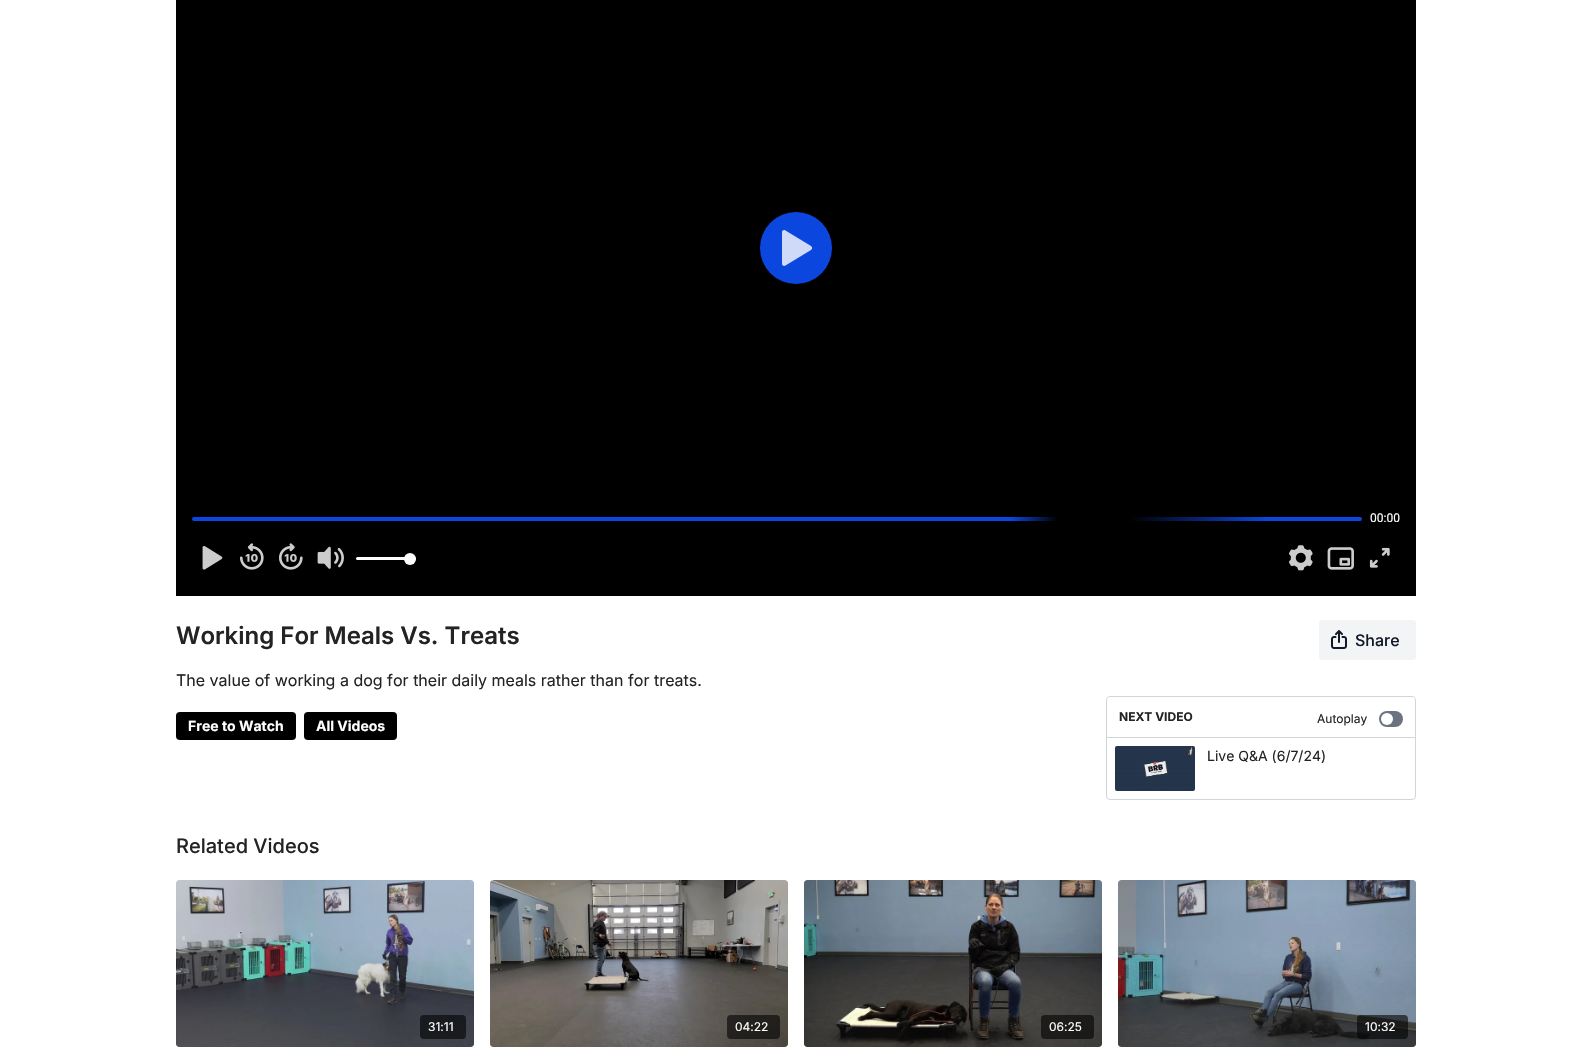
void draw(SkCanvas* c) {
SkPaint p;
p.setAntiAlias(true);
auto F=[&](const char* family, int weight, float size, bool italic = false){SkFontStyle style(weight, SkFontStyle::kNormal_Width,italic ? SkFontStyle::kItalic_Slant : SkFontStyle::kUpright_Slant);SkFont result(fontMgr->matchFamilyStyle(family, style), size);result.setSubpixel(true);return result;};
auto T=[&](const char* s, float x, float y, const SkFont& font){c->drawString(s, x, y, font, p);};
auto R=[&](float x, float y, float w, float h){c->drawRect(SkRect::MakeXYWH(x, y, w, h), p);};
auto Q=[&](float x, float y, float w, float h, float radius){c->drawRoundRect(SkRect::MakeXYWH(x, y, w, h), radius, radius, p);};
auto I=[&](const char* path, float x, float y, float w, float h){auto image = SkImages::DeferredFromEncodedData(SkData::MakeFromFileName(path));c->drawImageRect(image, SkRect::MakeXYWH(x, y, w, h), SkSamplingOptions());};
auto P=[&](const char* data, bool evenOdd = false){SkPath result = *SkParsePath::FromSVGString(data);if (evenOdd) result.setFillType(SkPathFillType::kEvenOdd);return result;};
c->clear(0xffffffff);
p.setColor(0xff000000);
R(176,0,1240,596);
p.setColor(0xff0b46de);
c->drawCircle(796,248,36,p);
p.setColor(0xffcedaf8);
c->drawPath(P("M785.5 230.5c-1.5-1-3.5 0-3.5 1.5v32c0 1.5 2 2.5 3.5 1.5l25.5-15.5c1.5-1 1.5-3 0-4z"),p);
{
const SkColor colors[] = {0xff0b46de,0xff000000,0xff000000,0xff0b46de,0xff0b46de};
const float stops[] = {.35,.37,.4,.46,1};
const SkPoint ends[] = {{192,521}, {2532,521}};
p.setShader(SkGradientShader::MakeLinear(ends, colors, stops, 5, SkTileMode::kClamp));
p.setAlpha(255);
}
Q(192,517,1170,4,2);
auto f1 = F("Roboto",400,12);
p.setShader(nullptr);
p.setColor(0xffffffff);
T("00:00",1370,522,f1);
I("1.png",202,546,21,24);
I("2.png",240,543,24,27);
I("3.png",279,543,24,27);
I("4.png",317,546,27,23);
Q(356,557,60,3,1.5);
c->drawCircle(410,559,6,p);
I("5.png",1289,545,24,26);
I("6.png",1327,547,27,23);
I("7.png",1369,547,21,21);
auto f2 = F("Inter",600,24);
p.setColor(0xff232323);
T("Working For Meals Vs. Treats",176,644,f2);
p.setColor(0xfff3f4f6);
Q(1319,620,97,40,4);
I("8.png",1331,630,16,19);
auto f3 = F("Inter",500,16);
p.setColor(0xff111827);
T("Share",1355,646,f3);
auto f4 = F("Inter",400,16);
p.setColor(0xff232323);
T("The value of working a dog for their daily meals rather than for treats.",176,686,f4);
p.setColor(0xff000000);
Q(176,712,120,28,4);
auto f5 = F("Inter",700,14);
p.setColor(0xffffffff);
T("Free to Watch",188,731,f5);
p.setColor(0xff000000);
Q(304,712,93,28,4);
p.setColor(0xffffffff);
T("All Videos",316,731,f5);
p.setStroke(true);
p.setStrokeWidth(1);
p.setColor(0xffd1d5db);
c->drawRoundRect(SkRect::MakeXYWH(1106.5,696.5,309,103),3.5,3.5,p);
p.setStroke(false);
p.setColor(0xffffffff);
c->drawPath(P("M1110 697h302c1.5 0 3 1.5 3 3v37h-308v-37c0-1.5 1.5-3 3-3z"),p);
p.setColor(0xffd1d5db);
R(1107,737,308,1);
auto f6 = F("Inter",700,12);
p.setColor(0xff232323);
T("NEXT VIDEO",1119,721,f6);
auto f7 = F("Inter",400,12);
T("Autoplay",1317,723,f7);
p.setColor(0xff6b7280);
Q(1379,711,24,16,8);
p.setColor(0xffffffff);
c->drawCircle(1387,719,6,p);
I("9.png",1115,746,80,45);
auto f8 = F("Inter",400,14);
p.setColor(0xff232323);
T("Live Q&A (6/7/24)",1207,761,f8);
auto f9 = F("Inter",500,20);
T("Related Videos",176,853,f9);
I("10.png",176,880,298,167);
p.setColor(0x99000000);
Q(420,1015,46,24,4);
p.setColor(0xffffffff);
T("31:11",428,1031,f7);
I("11.png",490,880,298,167);
p.setColor(0x99000000);
Q(727,1015,53,24,4);
p.setColor(0xffffffff);
T("04:22",735,1031,f7);
I("12.png",804,880,298,167);
p.setColor(0x99000000);
Q(1041,1015,53,24,4);
p.setColor(0xffffffff);
T("06:25",1049,1031,f7);
I("13.png",1118,880,298,167);
p.setColor(0x99000000);
Q(1357,1015,51,24,4);
p.setColor(0xffffffff);
T("10:32",1365,1031,f7);
}
